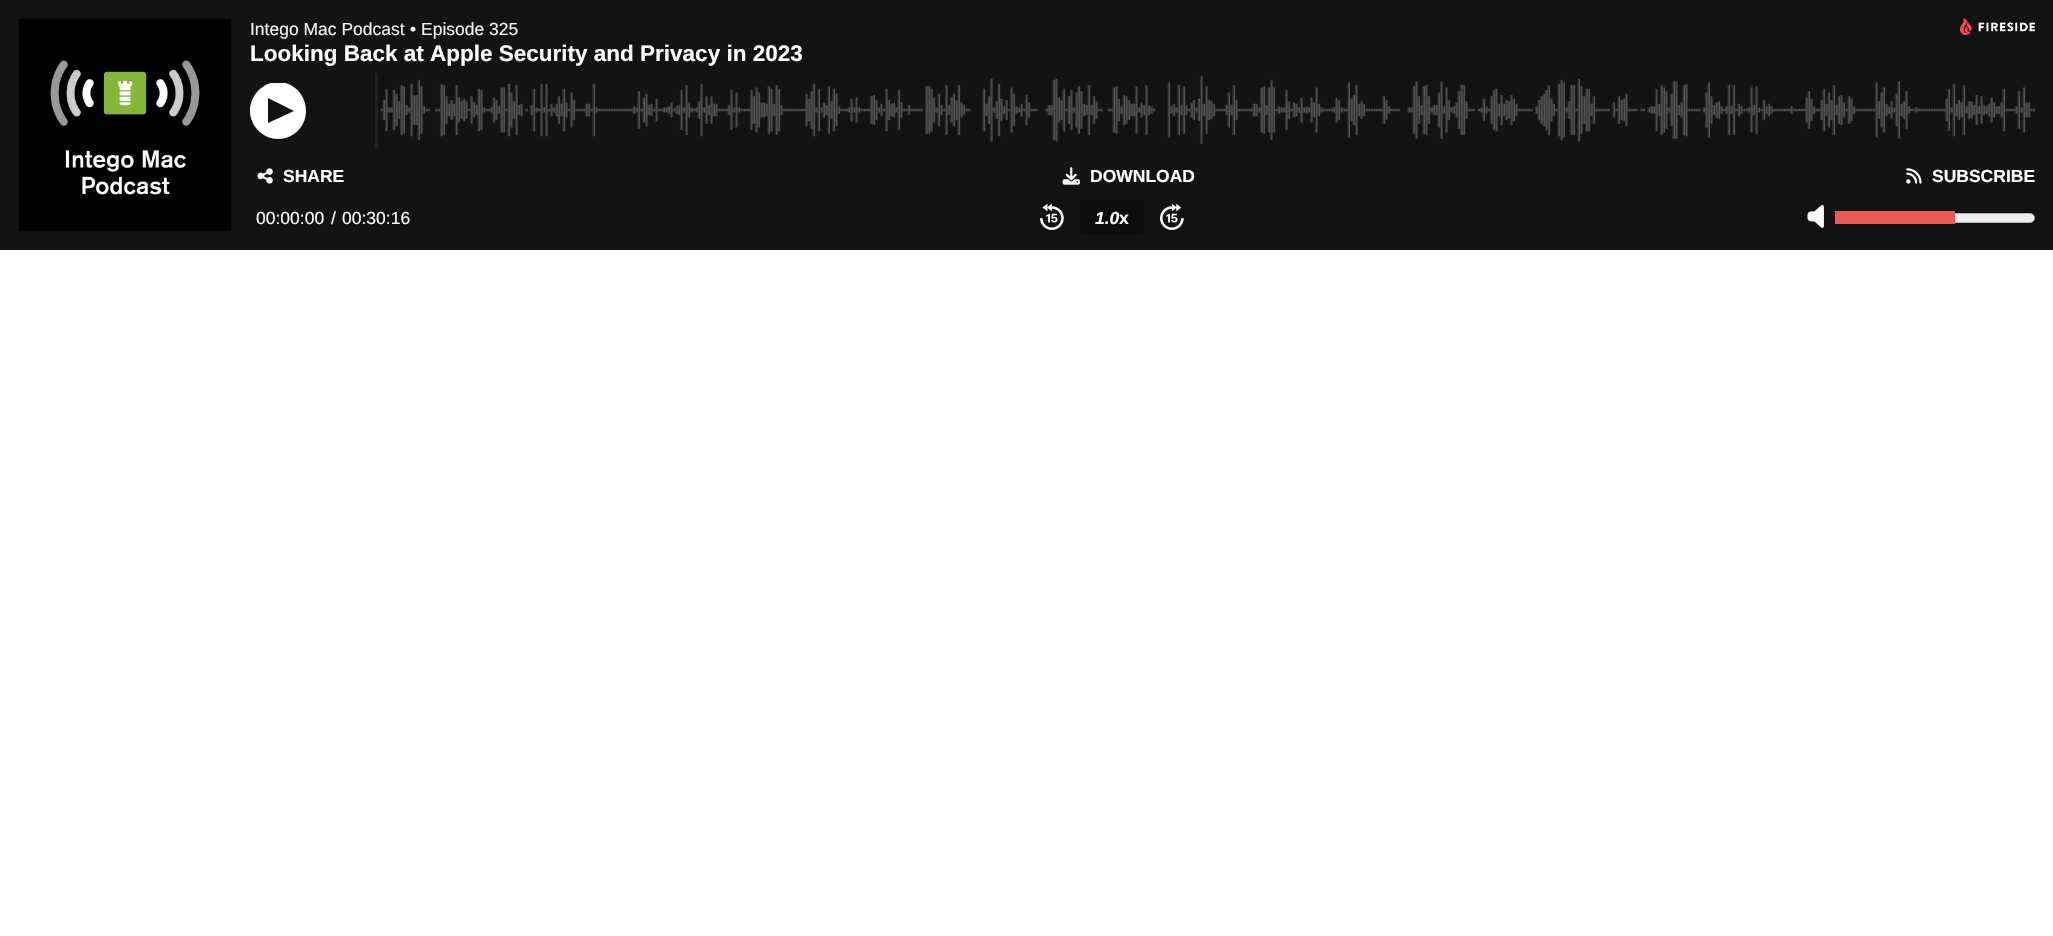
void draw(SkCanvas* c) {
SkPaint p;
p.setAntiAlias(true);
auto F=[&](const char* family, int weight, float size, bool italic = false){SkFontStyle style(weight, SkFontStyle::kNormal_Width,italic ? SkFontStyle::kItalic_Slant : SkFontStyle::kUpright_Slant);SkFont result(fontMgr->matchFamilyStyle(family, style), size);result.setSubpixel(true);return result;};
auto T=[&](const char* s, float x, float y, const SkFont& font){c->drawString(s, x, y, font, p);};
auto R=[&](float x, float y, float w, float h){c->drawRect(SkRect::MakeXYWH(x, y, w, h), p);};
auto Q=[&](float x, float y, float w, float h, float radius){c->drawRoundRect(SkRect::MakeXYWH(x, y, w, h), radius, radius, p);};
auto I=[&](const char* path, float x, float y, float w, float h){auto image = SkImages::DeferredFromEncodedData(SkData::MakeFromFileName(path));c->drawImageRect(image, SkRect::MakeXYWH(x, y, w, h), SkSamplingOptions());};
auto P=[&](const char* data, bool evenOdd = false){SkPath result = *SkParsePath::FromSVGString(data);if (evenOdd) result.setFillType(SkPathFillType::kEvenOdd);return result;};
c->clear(0xffffffff);
p.setColor(0xff121313);
R(0,0,2053,250);
I("1.png",18,18,214,214);
I("2.png",1960,18,75,17);
auto f1 = F("Liberation Sans",400,17.5);
p.setColor(0xfff2f2f2);
T("Intego Mac Podcast",250,35,f1);
p.setColor(0xffffffff);
T("•",410,35,f1);
p.setColor(0xfff2f2f2);
T("Episode 325",421,35,f1);
auto f2 = F("Liberation Sans",700,22.5);
p.setColor(0xffffffff);
T("Looking Back at Apple Security and Privacy in 2023",250,61,f2);
c->save();
c->clipRect(SkRect::MakeXYWH(250,83,56,56));
c->drawPath(P("M278 82c-15 0-28 13-28 29c0 15 13 28 28 28c16 0 28-13 28-28c0-16-12-29-28-29zm-10 41v-25l26 13z"),p);
c->restore();
p.setColor(0xff222222);
R(375,73,3,75);
I("3.png",380,76,1655,68);
I("4.png",257,168,16,16);
auto f3 = F("Liberation Sans",700,17.5);
p.setColor(0xffffffff);
T("SHARE",283,182,f3);
I("5.png",1062,167,18,18);
T("DOWNLOAD",1090,182,f3);
I("6.png",1906,168,16,16);
T("SUBSCRIBE",1932,182,f3);
T("00:00:00",256,224,f1);
T("/",331,224,f1);
T("00:30:16",342,224,f1);
I("7.png",1040,204,24,26);
p.setColor(0xff0d0d0d);
Q(1080,200,64,35,5);
auto f4 = F("Liberation Sans",700,17.5,true);
p.setColor(0xffffffff);
T("1.0",1095,224,f4);
T("x",1119,224,f3);
I("8.png",1160,204,24,26);
I("9.png",1807,205,17,23);
p.setColor(0xffefefef);
c->drawRoundRect(SkRect::MakeXYWH(1835.5,213.5,199,9),4.5,4.5,p);
p.setStroke(true);
p.setStrokeWidth(1);
p.setColor(0xffb2b2b2);
c->drawRoundRect(SkRect::MakeXYWH(1835.5,213.5,199,9),4.5,4.5,p);
p.setStroke(false);
p.setColor(0xffeb5857);
R(1835,211,120,13);
}
